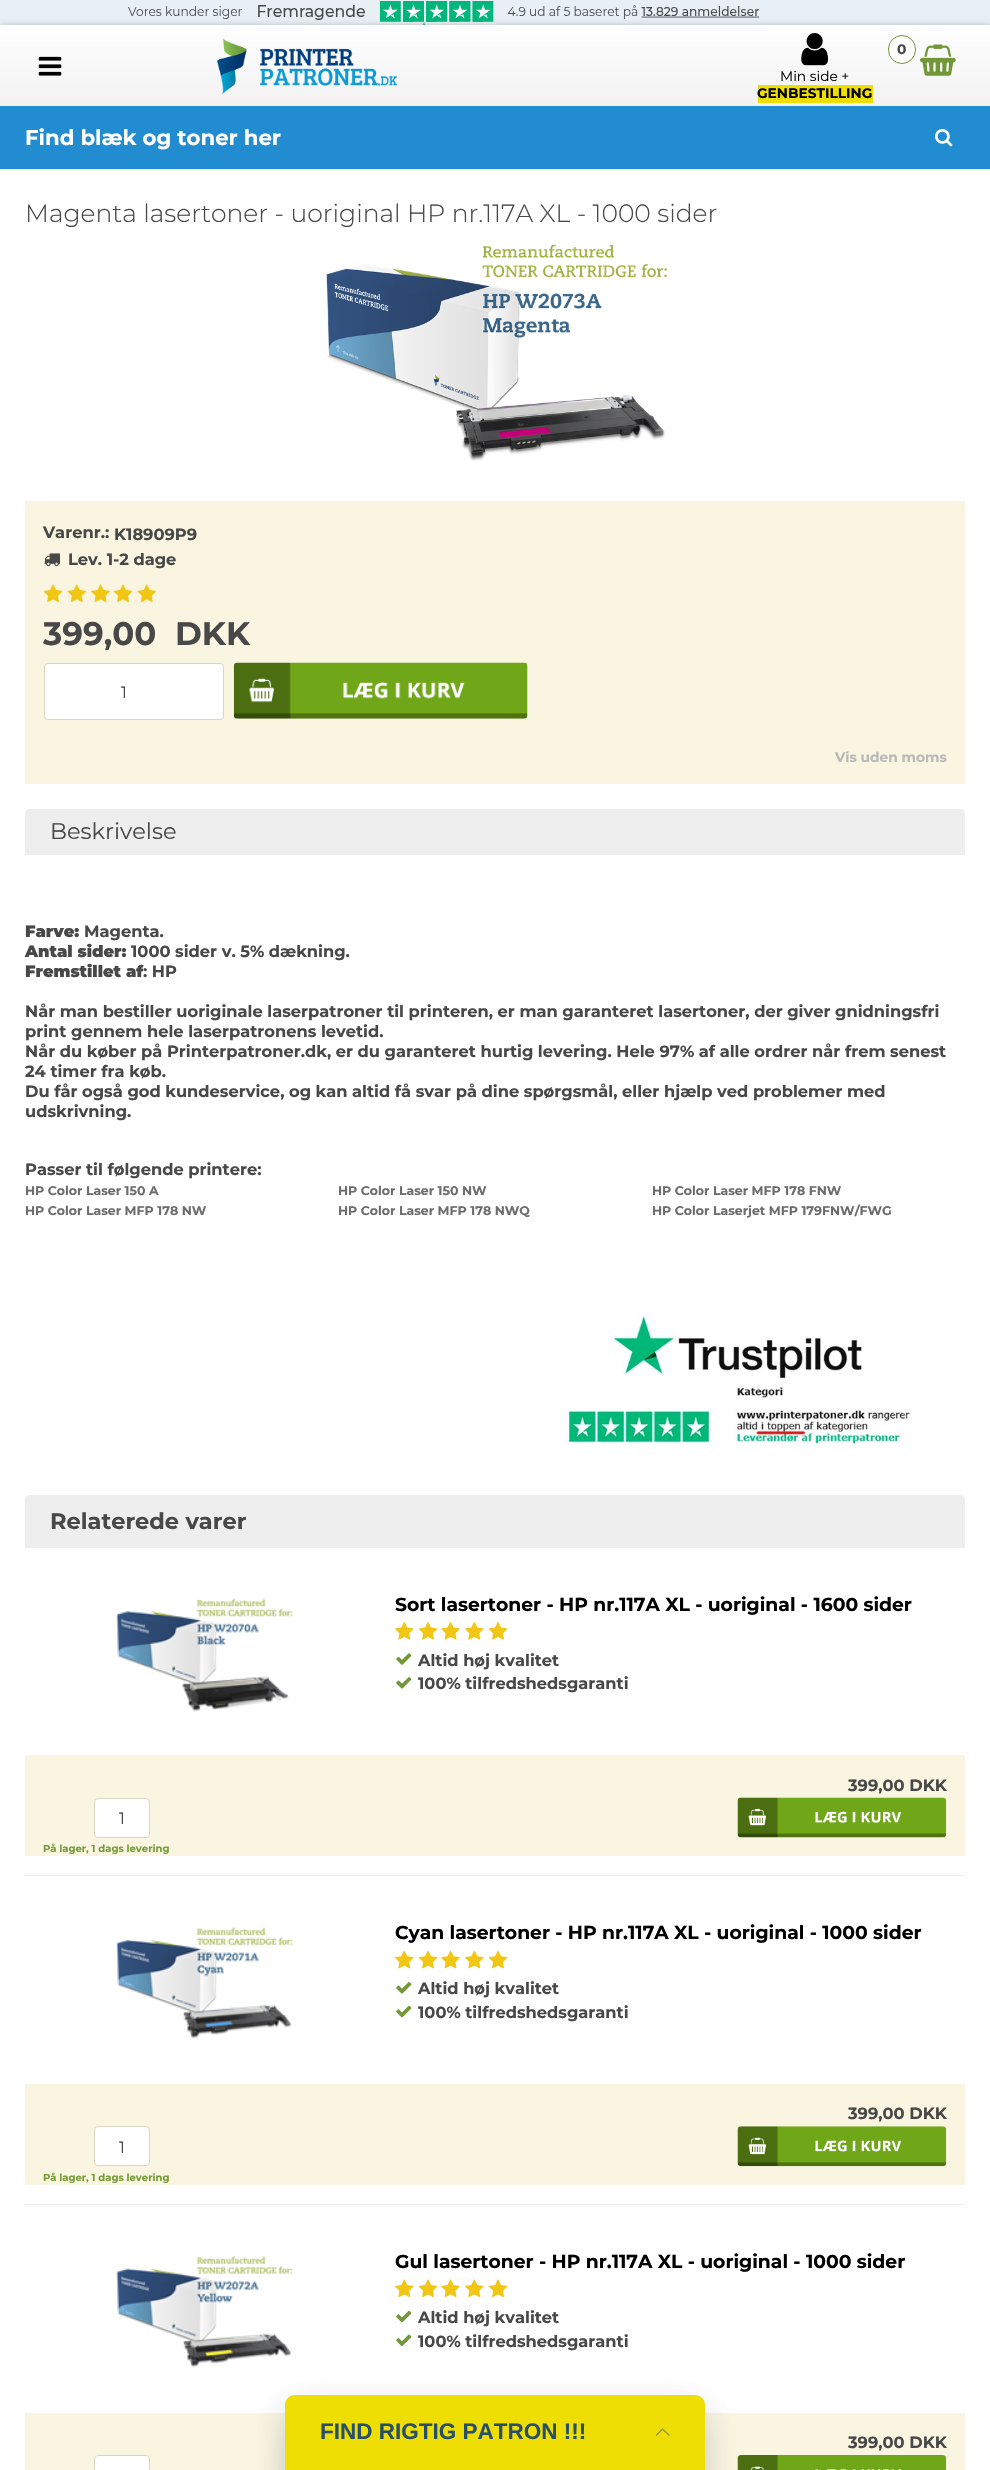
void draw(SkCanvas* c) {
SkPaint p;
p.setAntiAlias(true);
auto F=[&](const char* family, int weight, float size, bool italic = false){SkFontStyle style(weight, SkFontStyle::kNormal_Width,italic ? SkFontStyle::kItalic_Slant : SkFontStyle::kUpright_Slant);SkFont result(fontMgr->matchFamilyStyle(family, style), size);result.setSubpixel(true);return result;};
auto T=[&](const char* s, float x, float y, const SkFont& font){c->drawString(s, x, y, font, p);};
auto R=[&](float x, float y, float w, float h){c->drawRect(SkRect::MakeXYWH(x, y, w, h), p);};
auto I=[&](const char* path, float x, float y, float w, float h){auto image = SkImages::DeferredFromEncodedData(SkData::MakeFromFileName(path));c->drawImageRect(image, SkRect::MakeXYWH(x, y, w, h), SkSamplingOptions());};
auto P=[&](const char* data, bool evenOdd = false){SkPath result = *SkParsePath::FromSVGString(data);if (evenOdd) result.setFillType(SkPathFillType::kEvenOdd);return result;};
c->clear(0xffe8f0f6);
I("1.png",128,1,632,24);
p.setColor(0xffffffff);
R(0,169,990,2301);
p.setColor(0x33000000);
p.setMaskFilter(SkMaskFilter::MakeBlur(kNormal_SkBlurStyle, 3));
c->drawRect(SkRect::MakeXYWH(0,25,990,81),p);
p.setMaskFilter(nullptr);
{
const SkColor colors[] = {0xffffffff,0xfff2f2f2};
const float stops[] = {0,1};
const SkPoint ends[] = {{495,25}, {495,106}};
p.setShader(SkGradientShader::MakeLinear(ends, colors, stops, 2, SkTileMode::kClamp));
p.setAlpha(255);
}
R(0,25,990,81);
I("2.png",216,38,181,56);
p.setShader(nullptr);
p.setColor(0xffffffff);
c->drawRoundRect(SkRect::MakeXYWH(888.5,35.5,27,28),13.5,13.5,p);
p.setStroke(true);
p.setStrokeWidth(1);
p.setColor(0xff719736);
c->drawRoundRect(SkRect::MakeXYWH(888.5,35.5,27,28),13.5,13.5,p);
auto f1 = F("Montserrat",700,13.75);
p.setStroke(false);
p.setColor(0xff484848);
T("0",897,54,f1);
I("3.png",920,44,36,32);
I("4.png",38,56,24,20);
I("5.png",801,33,27,33);
auto f2 = F("Montserrat",400,13.75);
p.setColor(0xff000000);
T("Min side +",780,81,f2);
p.setColor(0xffeede04);
R(758,85,115,18);
p.setColor(0xff000000);
T("GENBESTILLING",757,98,f1);
p.setColor(0xff228cd1);
R(0,106,990,63);
auto f3 = F("Montserrat",700,21.25);
p.setColor(0xffffffff);
T("Find blæk og toner her",25,145,f3);
I("6.png",935,129,18,18);
auto f4 = F("Montserrat",300,25);
p.setColor(0xff484848);
T("Magenta lasertoner - uoriginal HP nr.117A XL - 1000 sider",25,222,f4);
I("7.png",326,244,341,217);
p.setColor(0xfffaf5e1);
R(25,501,940,283);
auto f5 = F("Montserrat",700,16.25);
p.setColor(0xff484848);
T("Varenr.:",43,538,f5);
T("K18909P9",114,540,f5);
I("8.png",44,553,16,14);
T("Lev. 1-2 dage",68,565,f5);
I("9.png",43,584,20,19);
I("10.png",67,584,19,19);
I("11.png",91,584,19,19);
I("9.png",113,584,20,19);
I("10.png",137,584,19,19);
auto f6 = F("Montserrat",700,32.5);
T("399,00",43,645,f6);
T("DKK",175,645,f6);
p.setColor(0xffffffff);
c->drawRoundRect(SkRect::MakeXYWH(44.5,663.5,179,56),3.5,3.5,p);
p.setStroke(true);
p.setColor(0xffdcd6c0);
c->drawRoundRect(SkRect::MakeXYWH(44.5,663.5,179,56),3.5,3.5,p);
auto f7 = F("Montserrat",400,16.25);
p.setStroke(false);
p.setColor(0xff484848);
T("1",121,698,f7);
I("12.png",233,662,295,57);
p.setColor(0xffb9b9b9);
T("Vis uden moms",835,762,f1);
p.setColor(0xffeeeeee);
c->drawPath(P("M29 809h932c2 0 4 2 4 4v42h-940v-42c0-2 2-4 4-4z"),p);
auto f8 = F("Montserrat",400,22.5);
p.setColor(0xff484848);
T("Beskrivelse",50,839,f8);
auto f9 = F("Montserrat",900,16.25);
T("Farve:",25,937,f9);
T("Magenta.",84,937,f5);
T("Antal sider:",25,957,f9);
T("1000 sider v. 5% dækning.",131,957,f5);
T("Fremstillet af",25,977,f9);
T(": HP",143,977,f5);
T("Når man bestiller uoriginale laserpatroner til printeren, er man garanteret lasertoner, der giver gnidningsfri",25,1017,f5);
T("print gennem hele laserpatronens levetid.",25,1037,f5);
T("Når du køber på Printerpatroner.dk, er du garanteret hurtig levering. Hele 97% af alle ordrer når frem senest",25,1057,f5);
T("24 timer fra køb.",25,1077,f5);
T("Du får også god kundeservice, og kan altid få svar på dine spørgsmål, eller hjælp ved problemer med",25,1097,f5);
T("udskrivning.",25,1117,f5);
T("Passer til følgende printere:",25,1175,f5);
auto f10 = F("Montserrat",700,12.5);
p.setColor(0xff6c6c6c);
T("HP Color Laser 150 A",25,1195,f10);
T("HP Color Laser 150 NW",338,1195,f10);
T("HP Color Laser MFP 178 FNW",652,1195,f10);
T("HP Color Laser MFP 178 NW",25,1215,f10);
T("HP Color Laser MFP 178 NWQ",338,1215,f10);
T("HP Color Laserjet MFP 179FNW/FWG",652,1215,f10);
I("13.png",565,1311,349,138);
p.setColor(0xffeeeeee);
c->drawPath(P("M29 1495h932c2 0 4 2 4 4v49h-940v-49c0-2 2-4 4-4z"),p);
auto f11 = F("Montserrat",700,22.5);
p.setColor(0xff484848);
T("Relaterede varer",50,1529,f11);
p.setColor(0xffeeeeee);
R(25,1875,940,1);
I("14.png",116,1598,177,114);
auto f12 = F("Montserrat",700,18.75);
p.setColor(0xff000000);
T("Sort lasertoner - HP nr.117A XL - uoriginal - 1600 sider",395,1611,f12);
I("15.png",395,1622,19,18);
I("16.png",418,1622,20,18);
I("17.png",441,1622,19,18);
I("15.png",465,1622,19,18);
I("16.png",488,1622,20,18);
I("18.png",396,1653,16,12);
p.setColor(0xff484848);
T("Altid høj kvalitet",418,1666,f5);
I("19.png",396,1677,16,12);
T("100% tilfredshedsgaranti",418,1689,f5);
p.setColor(0xfffaf5e1);
R(25,1755,940,101);
p.setColor(0xff484848);
T("399,00 DKK",848,1791,f5);
p.setColor(0xffffffff);
c->drawRoundRect(SkRect::MakeXYWH(94.5,1798.5,55,39),3.5,3.5,p);
p.setStroke(true);
p.setColor(0xffdcd6c0);
c->drawRoundRect(SkRect::MakeXYWH(94.5,1798.5,55,39),3.5,3.5,p);
p.setStroke(false);
p.setColor(0xff484848);
T("1",119,1824,f7);
I("20.png",737,1797,210,41);
auto f13 = F("Montserrat",700,10);
p.setColor(0xff759c37);
T("På lager, 1 dags levering",43,1852,f13);
p.setColor(0xffeeeeee);
R(25,2204,940,1);
I("21.png",116,1927,177,112);
p.setColor(0xff000000);
T("Cyan lasertoner - HP nr.117A XL - uoriginal - 1000 sider",395,1939,f12);
I("22.png",395,1950,19,19);
I("23.png",418,1950,20,19);
I("24.png",441,1950,19,19);
I("22.png",465,1950,19,19);
I("23.png",488,1950,20,19);
I("19.png",396,1982,16,12);
p.setColor(0xff484848);
T("Altid høj kvalitet",418,1994,f5);
I("25.png",396,2005,16,13);
T("100% tilfredshedsgaranti",418,2018,f5);
p.setColor(0xfffaf5e1);
R(25,2084,940,101);
p.setColor(0xff484848);
T("399,00 DKK",848,2119,f5);
p.setColor(0xffffffff);
c->drawRoundRect(SkRect::MakeXYWH(94.5,2126.5,55,39),3.5,3.5,p);
p.setStroke(true);
p.setColor(0xffdcd6c0);
c->drawRoundRect(SkRect::MakeXYWH(94.5,2126.5,55,39),3.5,3.5,p);
p.setStroke(false);
p.setColor(0xff484848);
T("1",119,2153,f7);
I("26.png",737,2126,210,41);
p.setColor(0xff759c37);
T("På lager, 1 dags levering",43,2181,f13);
I("27.png",116,2256,177,112);
p.setColor(0xff000000);
T("Gul lasertoner - HP nr.117A XL - uoriginal - 1000 sider",395,2268,f12);
I("28.png",395,2279,19,19);
I("29.png",418,2279,20,19);
I("30.png",441,2279,19,19);
I("28.png",465,2279,19,19);
I("29.png",488,2279,20,19);
I("25.png",396,2310,16,13);
p.setColor(0xff484848);
T("Altid høj kvalitet",418,2323,f5);
I("31.png",396,2334,16,13);
T("100% tilfredshedsgaranti",418,2347,f5);
p.setColor(0xfffaf5e1);
R(25,2413,940,57);
p.setColor(0xff484848);
T("399,00 DKK",848,2448,f5);
p.setColor(0xffffffff);
c->drawRoundRect(SkRect::MakeXYWH(94.5,2455.5,55,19),3.5,3.5,p);
p.setStroke(true);
p.setColor(0xffdcd6c0);
c->drawRoundRect(SkRect::MakeXYWH(94.5,2455.5,55,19),3.5,3.5,p);
I("32.png",737,2455,210,15);
p.setStroke(false);
p.setColor(0x26363d4d);
p.setMaskFilter(SkMaskFilter::MakeBlur(kNormal_SkBlurStyle, 20));
c->drawRoundRect(SkRect::MakeXYWH(291,2415,408,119),4,4,p);
p.setMaskFilter(nullptr);
p.setMaskFilter(SkMaskFilter::MakeBlur(kNormal_SkBlurStyle, 15));
c->drawRoundRect(SkRect::MakeXYWH(285,2408,420,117),10,10,p);
p.setMaskFilter(nullptr);
p.setColor(0xffeede04);
c->drawPath(P("M295 2395h400c5.5 0 10 4.5 10 10v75h-420v-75c0-5.5 4.5-10 10-10z"),p);
auto f14 = F("Liberation Sans",700,22.5);
p.setColor(0xff274f67);
T("FIND RIGTIG PATRON !!!",320,2439,f14);
p.setStroke(true);
p.setStrokeWidth(1.2);
p.setStrokeCap(SkPaint::kRound_Cap);
p.setStrokeJoin(SkPaint::kRound_Join);
p.setColor(0xff8b9736);
c->drawPath(P("M669 2435l-6.5-6l-6 6"),p);
}
